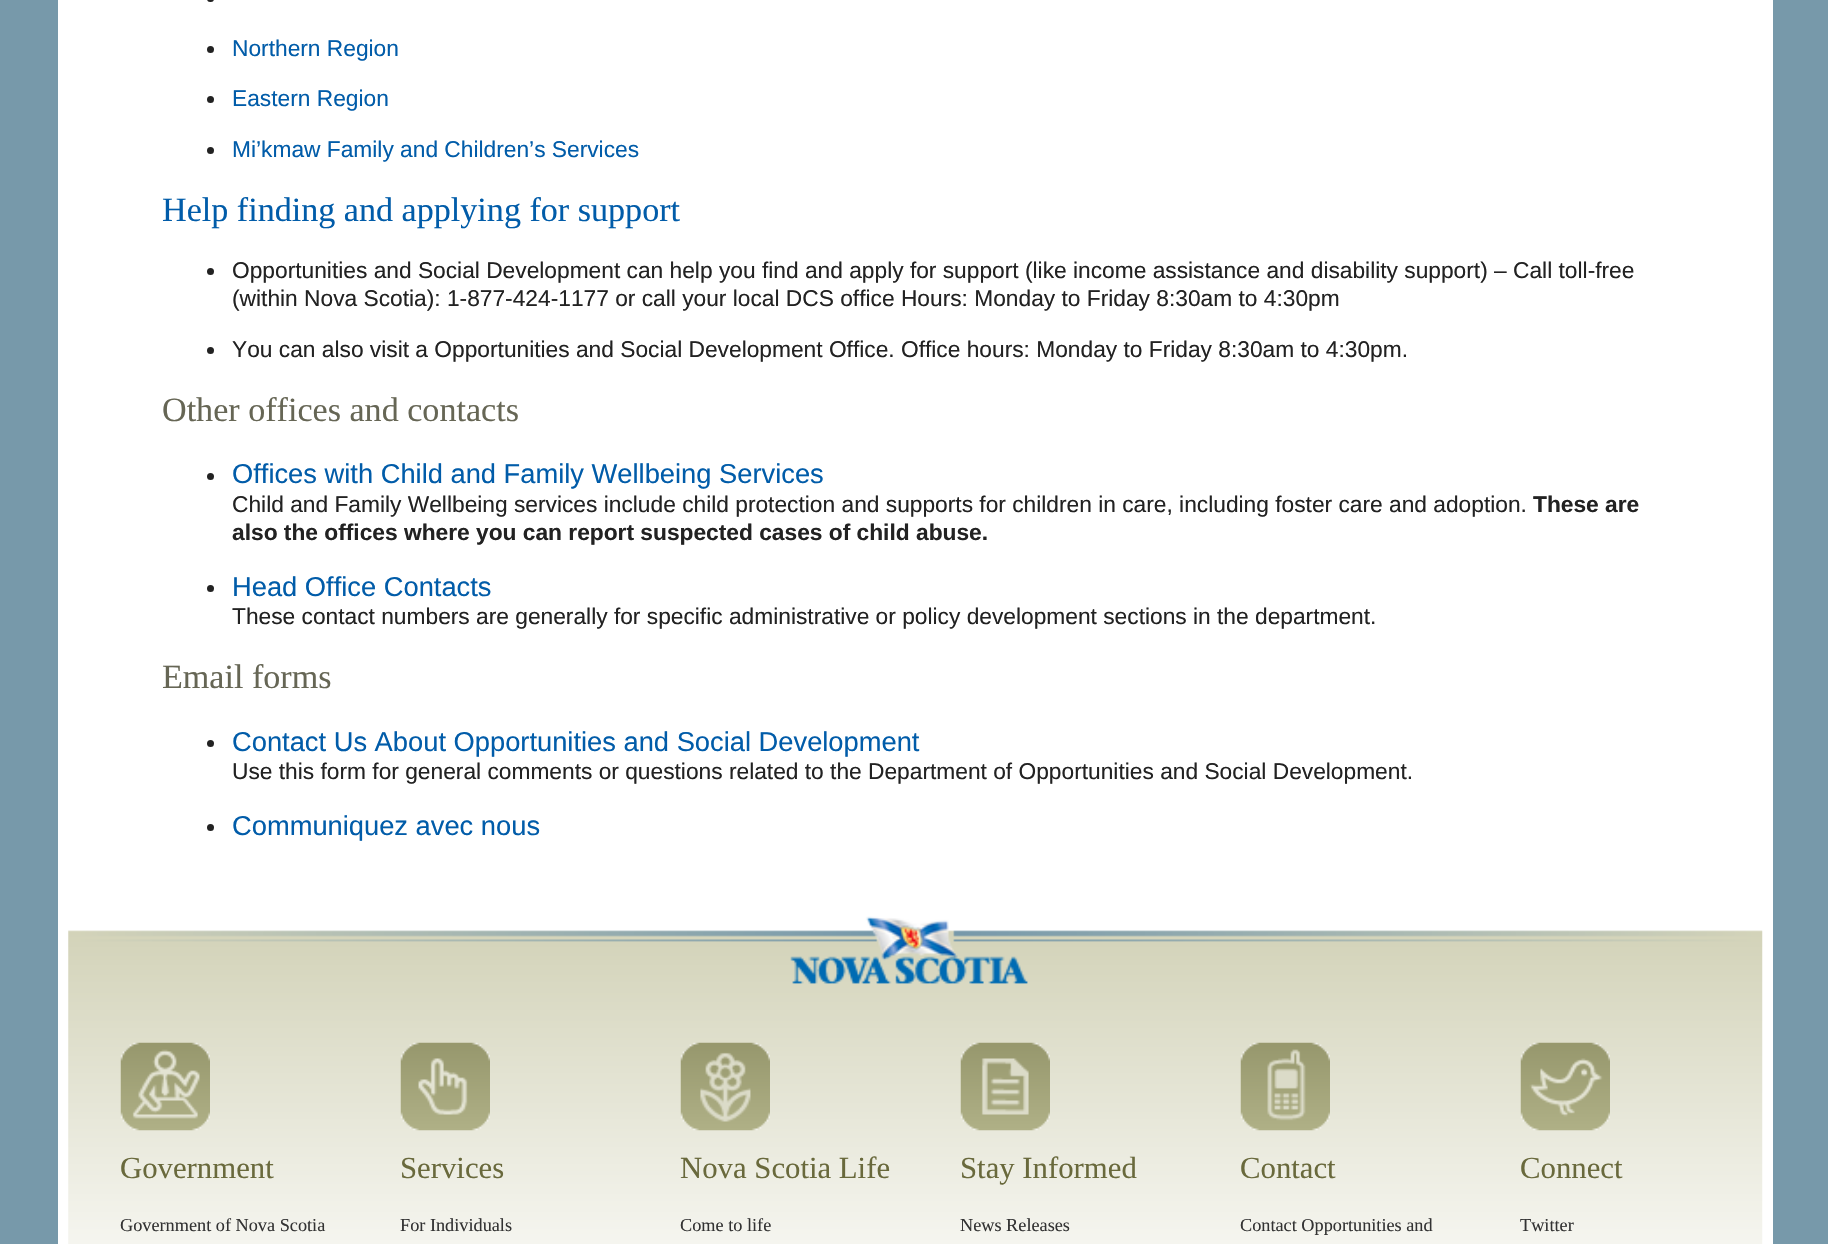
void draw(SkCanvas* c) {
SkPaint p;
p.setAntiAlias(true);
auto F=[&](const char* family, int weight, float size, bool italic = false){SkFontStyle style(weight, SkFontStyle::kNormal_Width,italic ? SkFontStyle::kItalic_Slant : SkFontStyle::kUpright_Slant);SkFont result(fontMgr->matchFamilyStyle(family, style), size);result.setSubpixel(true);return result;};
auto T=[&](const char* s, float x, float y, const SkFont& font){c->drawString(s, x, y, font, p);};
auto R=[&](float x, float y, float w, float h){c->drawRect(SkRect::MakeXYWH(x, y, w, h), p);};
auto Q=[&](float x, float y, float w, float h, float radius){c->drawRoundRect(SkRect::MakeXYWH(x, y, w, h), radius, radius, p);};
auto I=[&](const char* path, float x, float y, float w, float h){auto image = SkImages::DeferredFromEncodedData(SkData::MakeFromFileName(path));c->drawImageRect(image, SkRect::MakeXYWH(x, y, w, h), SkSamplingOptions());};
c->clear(0xff7799aa);
p.setColor(0xffffffff);
R(58,0,1715,1244);
p.setColor(0xff222222);
Q(207,-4,7,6,3.5);
c->drawCircle(210.5,49.5,3.5,p);
auto f1 = F("Liberation Sans",400,22.75);
p.setColor(0xff015ca9);
T("Northern Region",232,56,f1);
p.setColor(0xff222222);
c->drawCircle(210.5,99.5,3.5,p);
p.setColor(0xff015ca9);
T("Eastern Region",232,106,f1);
p.setColor(0xff222222);
c->drawCircle(210.5,150.5,3.5,p);
p.setColor(0xff015ca9);
T("Mi’kmaw Family and Children’s Services",232,157,f1);
auto f2 = F("Liberation Serif",400,34.1);
T("Help finding and applying for support",162,221,f2);
p.setColor(0xff222222);
c->drawCircle(210.5,271.5,3.5,p);
T("Opportunities and Social Development can help you find and apply for support (like income assistance and disability support) – Call toll-free",232,278,f1);
T("(within Nova Scotia): 1-877-424-1177 or call your local DCS office Hours: Monday to Friday 8:30am to 4:30pm",232,306,f1);
c->drawCircle(210.5,350.5,3.5,p);
T("You can also visit a Opportunities and Social Development Office. Office hours: Monday to Friday 8:30am to 4:30pm.",232,357,f1);
p.setColor(0xff666655);
T("Other offices and contacts",162,421,f2);
p.setColor(0xff222222);
c->drawCircle(210.5,476.5,3.5,p);
auto f3 = F("Liberation Sans",400,27.3);
p.setColor(0xff015ca9);
T("Offices with Child and Family Wellbeing Services",232,483,f3);
p.setColor(0xff222222);
T("Child and Family Wellbeing services include child protection and supports for children in care, including foster care and adoption.",232,512,f1);
auto f4 = F("Liberation Sans",700,22.75);
T("These are",1533,512,f4);
T("also the offices where you can report suspected cases of child abuse.",232,540,f4);
c->drawCircle(210.5,588.5,3.5,p);
p.setColor(0xff015ca9);
T("Head Office Contacts",232,596,f3);
p.setColor(0xff222222);
T("These contact numbers are generally for specific administrative or policy development sections in the department.",232,624,f1);
p.setColor(0xff666655);
T("Email forms",162,688,f2);
p.setColor(0xff222222);
c->drawCircle(210.5,743.5,3.5,p);
p.setColor(0xff015ca9);
T("Contact Us About Opportunities and Social Development",232,751,f3);
p.setColor(0xff222222);
T("Use this form for general comments or questions related to the Department of Opportunities and Social Development.",232,779,f1);
c->drawCircle(210.5,827.5,3.5,p);
p.setColor(0xff015ca9);
T("Communiquez avec nous",232,835,f3);
I("1.png",68,916,1695,328);
I("2.png",120,1042,90,89);
auto f5 = F("Liberation Serif",400,30.75);
p.setColor(0xff69693c);
T("Government",120,1178,f5);
auto f6 = F("Liberation Serif",400,18.25);
p.setColor(0xff333333);
T("Government of Nova Scotia",120,1231,f6);
I("3.png",400,1042,90,89);
p.setColor(0xff69693c);
T("Services",400,1178,f5);
p.setColor(0xff333333);
T("For Individuals",400,1231,f6);
I("4.png",680,1042,90,89);
p.setColor(0xff69693c);
T("Nova Scotia Life",680,1178,f5);
p.setColor(0xff333333);
T("Come to life",680,1231,f6);
I("5.png",960,1042,90,89);
p.setColor(0xff69693c);
T("Stay Informed",960,1178,f5);
p.setColor(0xff333333);
T("News Releases",960,1231,f6);
I("6.png",1240,1042,90,89);
p.setColor(0xff69693c);
T("Contact",1240,1178,f5);
p.setColor(0xff333333);
T("Contact Opportunities and",1240,1231,f6);
I("7.png",1520,1042,90,89);
p.setColor(0xff69693c);
T("Connect",1520,1178,f5);
p.setColor(0xff333333);
T("Twitter",1520,1231,f6);
}
